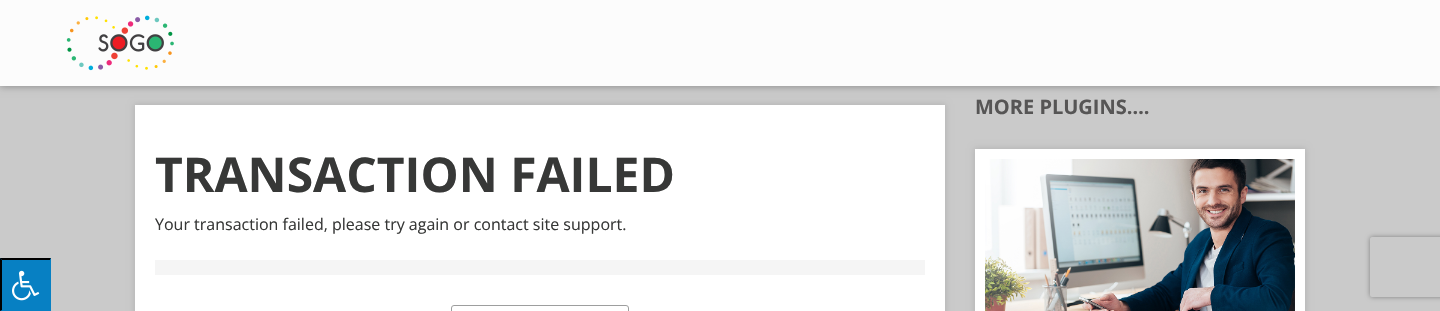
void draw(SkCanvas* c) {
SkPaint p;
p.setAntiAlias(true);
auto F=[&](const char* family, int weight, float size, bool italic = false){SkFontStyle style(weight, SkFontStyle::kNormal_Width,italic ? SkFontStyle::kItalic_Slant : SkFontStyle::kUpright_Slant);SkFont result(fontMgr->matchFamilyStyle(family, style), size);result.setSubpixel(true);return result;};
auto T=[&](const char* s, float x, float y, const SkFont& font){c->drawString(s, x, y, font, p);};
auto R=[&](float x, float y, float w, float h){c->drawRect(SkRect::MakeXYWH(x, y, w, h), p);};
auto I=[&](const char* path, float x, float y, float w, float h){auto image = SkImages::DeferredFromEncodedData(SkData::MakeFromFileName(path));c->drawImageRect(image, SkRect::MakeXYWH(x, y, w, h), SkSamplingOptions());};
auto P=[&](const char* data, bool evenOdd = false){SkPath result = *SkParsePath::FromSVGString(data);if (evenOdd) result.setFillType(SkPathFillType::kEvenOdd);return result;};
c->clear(0xffcacaca);
p.setColor(0x59000000);
p.setMaskFilter(SkMaskFilter::MakeBlur(kNormal_SkBlurStyle, 4));
c->drawRect(SkRect::MakeXYWH(0,0,1440,86),p);
p.setMaskFilter(nullptr);
p.setColor(0xfffcfcfc);
R(0,0,1440,86);
I("1.png",66,15,108,56);
auto f1 = F("Open Sans",700,20);
p.setColor(0xff565555);
T("MORE PLUGINS….",975,114,f1);
p.setColor(0x1a000000);
p.setMaskFilter(SkMaskFilter::MakeBlur(kNormal_SkBlurStyle, 3));
c->drawRect(SkRect::MakeXYWH(974,148,332,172),p);
p.setMaskFilter(nullptr);
p.setColor(0xffffffff);
R(975,149,330,162);
I("2.png",985,159,310,152);
p.setColor(0x1a000000);
p.setMaskFilter(SkMaskFilter::MakeBlur(kNormal_SkBlurStyle, 3));
c->drawRect(SkRect::MakeXYWH(134,104,812,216),p);
p.setMaskFilter(nullptr);
p.setColor(0xffffffff);
R(135,105,810,206);
auto f2 = F("Open Sans",700,48);
p.setColor(0xff373837);
T("TRANSACTION FAILED",155,192,f2);
p.setColor(0xfff5f5f5);
R(155,260,770,15);
auto f3 = F("Open Sans",400,16);
p.setColor(0xff373837);
T("Your transaction failed, please try again or contact site support.",155,230,f3);
p.setStroke(true);
p.setStrokeWidth(1);
p.setColor(0xff9d9e9e);
c->drawRoundRect(SkRect::MakeXYWH(451.5,305.5,177,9),2.5,2.5,p);
p.setStroke(false);
p.setColor(0xff0780c3);
R(0,258,51,53);
p.setColor(0xff000000);
c->drawPath(P("M0 258h51l-1 2h-48z"),p);
p.setColor(0xff0780c3);
c->drawPath(P("M51 258v53l-1-1v-50z"),p);
p.setColor(0xff000000);
c->drawPath(P("M0 311v-53l2 2v50z"),p);
I("3.png",12,270,28,31);
c->save();
c->clipPath(P("M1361 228h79v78h-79zm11 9h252c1 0 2 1 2 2v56c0 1-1 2-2 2h-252c-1 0-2-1-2-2v-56c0-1 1-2 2-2z",true),true);
p.setColor(0xff808080);
p.setMaskFilter(SkMaskFilter::MakeBlur(kNormal_SkBlurStyle, 2.5));
c->drawRoundRect(SkRect::MakeXYWH(1370,237,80,60),2,2,p);
p.setMaskFilter(nullptr);
c->restore();
}
